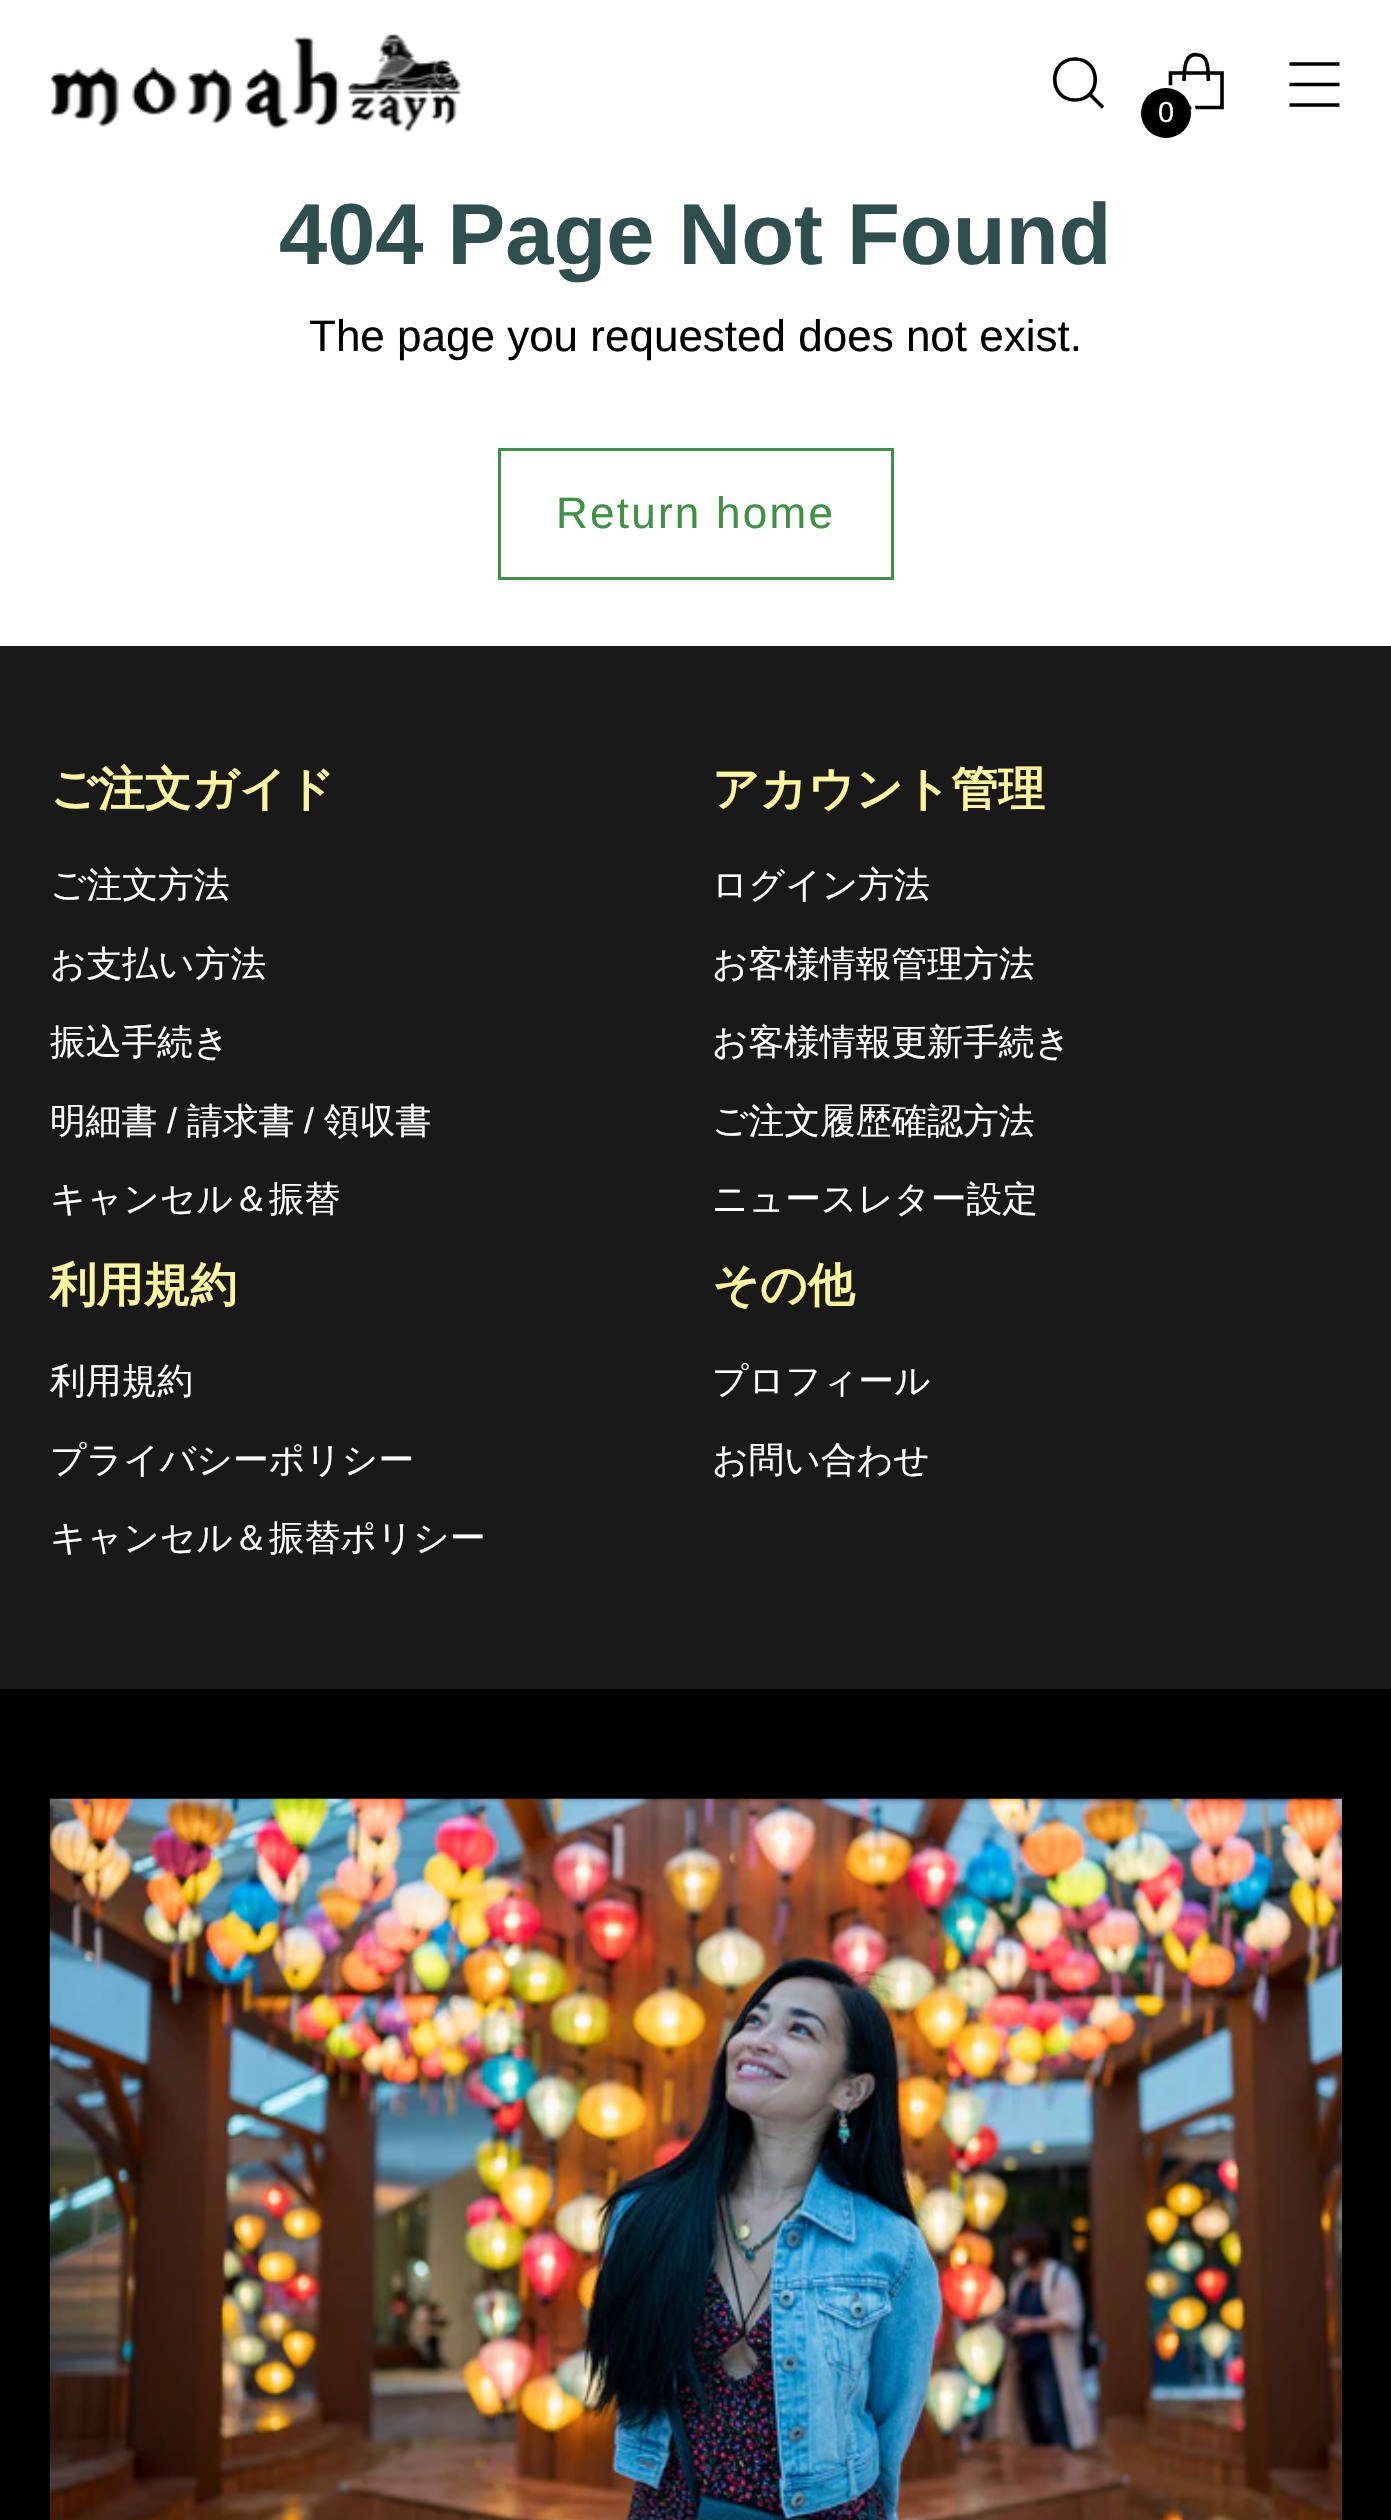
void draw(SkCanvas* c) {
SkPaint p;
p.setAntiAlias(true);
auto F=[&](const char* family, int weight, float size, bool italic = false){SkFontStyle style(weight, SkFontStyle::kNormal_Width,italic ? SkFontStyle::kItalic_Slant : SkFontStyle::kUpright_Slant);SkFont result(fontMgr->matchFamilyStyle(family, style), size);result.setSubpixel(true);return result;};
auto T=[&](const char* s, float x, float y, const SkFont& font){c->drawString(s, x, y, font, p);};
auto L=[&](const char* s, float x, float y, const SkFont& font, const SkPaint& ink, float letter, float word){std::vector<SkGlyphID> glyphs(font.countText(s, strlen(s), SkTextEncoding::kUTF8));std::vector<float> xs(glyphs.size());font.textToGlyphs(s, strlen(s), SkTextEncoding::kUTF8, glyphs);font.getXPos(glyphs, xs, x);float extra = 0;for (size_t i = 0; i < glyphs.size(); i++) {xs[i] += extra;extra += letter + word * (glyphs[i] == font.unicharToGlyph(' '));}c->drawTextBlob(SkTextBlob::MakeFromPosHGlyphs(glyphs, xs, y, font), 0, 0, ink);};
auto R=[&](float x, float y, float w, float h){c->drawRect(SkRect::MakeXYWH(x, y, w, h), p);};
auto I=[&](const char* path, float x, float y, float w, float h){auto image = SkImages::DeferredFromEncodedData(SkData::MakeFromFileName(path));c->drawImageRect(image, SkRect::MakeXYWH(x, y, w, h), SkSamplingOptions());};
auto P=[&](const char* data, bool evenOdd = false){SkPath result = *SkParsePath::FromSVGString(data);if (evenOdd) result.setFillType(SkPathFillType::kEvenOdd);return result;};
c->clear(0xffffffff);
I("1.png",51,34,411,98);
p.setStroke(true);
p.setStrokeWidth(3.6);
p.setStrokeCap(SkPaint::kRound_Cap);
p.setColor(0xff000000);
c->drawPath(P("M1075 100c27 0 27-41 0-41c-27 0-27 41 0 41z"),p);
p.setStrokeCap(SkPaint::kButt_Cap);
c->drawPath(P("M1090 94.5l13 13"),p);
c->drawPath(P("M1289.5 84.5h50m-50-20.5h50m-50 41h50"),p);
p.setStrokeJoin(SkPaint::kBevel_Join);
c->drawPath(P("M1208.5 81c-.5-6 0-13-2-19c-1-3.5-4-6.5-8-7c-15-3-14 16-14.5 26"),p);
p.setStrokeJoin(SkPaint::kMiter_Join);
c->drawPath(P("M1222 107.5v-34.5h-51.5v34.5z"),p);
p.setStrokeWidth(4);
p.setColor(0xffffffff);
c->drawRoundRect(SkRect::MakeXYWH(1141,87,53,54),26.5,26.5,p);
p.setStroke(false);
p.setColor(0xff000000);
c->drawCircle(1166,113,25,p);
auto f1 = F("Liberation Sans",400,29);
p.setColor(0xffffffff);
T("0",1158,122,f1);
auto f2 = F("Liberation Sans",700,86.6);
p.setColor(0xff2f4f4f);
T("404 Page Not Found",279,264,f2);
auto f3 = F("Liberation Sans",400,44);
p.setColor(0xff000000);
T("The page you requested does not exist.",309,351,f3);
p.setStroke(true);
p.setStrokeWidth(3);
p.setColor(0xff3c9342);
c->drawRect(SkRect::MakeXYWH(499.5,449.5,393,129),p);
p.setStroke(false);
L("Return home",556,528,f3,p,2.25,0);
p.setColor(0xff191919);
R(0,646,1391,1043);
auto f4 = F("WenQuanYi Zen Hei",700,46.75);
p.setColor(0xfffff59d);
T("ご注文ガイド",50,805,f4);
auto f5 = F("WenQuanYi Zen Hei",500,35.75);
p.setColor(0xffffffff);
T("ご注文方法",50,897,f5);
T("お支払い方法",50,976,f5);
T("振込手続き",50,1054,f5);
T("明細書",50,1133,f5);
auto f6 = F("Liberation Sans",400,35.75);
T("/",167,1133,f6);
T("請求書",187,1133,f5);
T("/",304,1133,f6);
T("領収書",324,1133,f5);
T("キャンセル＆振替",50,1211,f5);
p.setColor(0xfffff59d);
T("アカウント管理",712,805,f4);
p.setColor(0xffffffff);
T("ログイン方法",712,897,f5);
T("お客様情報管理方法",712,976,f5);
T("お客様情報更新手続き",712,1054,f5);
T("ご注文履歴確認方法",712,1133,f5);
T("ニュースレター設定",712,1211,f5);
p.setColor(0xfffff59d);
T("利用規約",50,1301,f4);
p.setColor(0xffffffff);
T("利用規約",50,1393,f5);
T("プライバシーポリシー",50,1472,f5);
T("キャンセル＆振替ポリシー",50,1550,f5);
p.setColor(0xfffff59d);
T("その他",712,1301,f4);
p.setColor(0xffffffff);
T("プロフィール",712,1393,f5);
T("お問い合わせ",712,1472,f5);
p.setColor(0xff000000);
R(0,1689,1391,831);
I("2.png",49,1798,1293,722);
}
